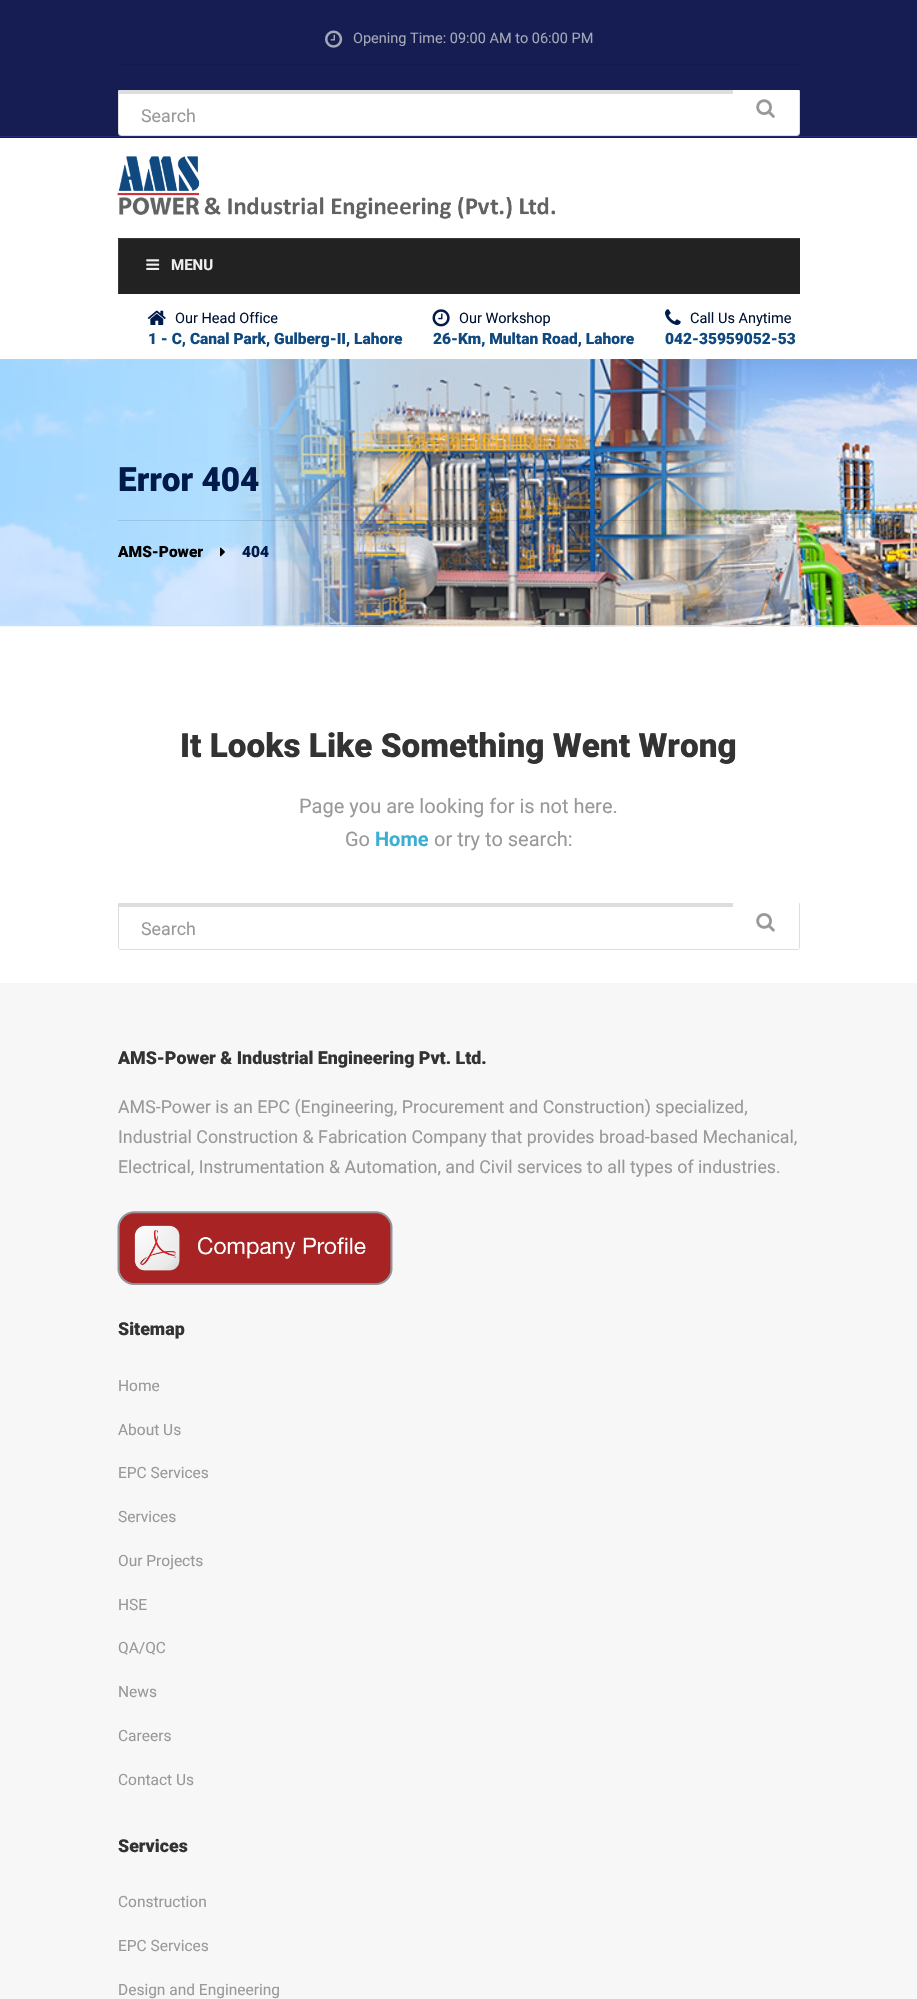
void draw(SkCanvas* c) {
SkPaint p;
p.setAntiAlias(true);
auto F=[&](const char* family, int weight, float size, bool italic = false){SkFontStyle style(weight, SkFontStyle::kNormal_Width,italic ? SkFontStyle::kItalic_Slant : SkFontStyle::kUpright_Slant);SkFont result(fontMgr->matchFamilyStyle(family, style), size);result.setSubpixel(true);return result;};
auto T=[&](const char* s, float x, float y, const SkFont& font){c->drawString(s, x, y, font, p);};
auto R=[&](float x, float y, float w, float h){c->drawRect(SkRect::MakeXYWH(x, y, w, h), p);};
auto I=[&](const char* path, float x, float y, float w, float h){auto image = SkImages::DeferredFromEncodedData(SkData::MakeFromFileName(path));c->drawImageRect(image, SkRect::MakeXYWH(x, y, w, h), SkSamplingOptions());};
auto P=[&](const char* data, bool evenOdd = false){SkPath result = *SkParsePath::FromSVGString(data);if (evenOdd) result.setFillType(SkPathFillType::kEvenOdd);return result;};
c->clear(0xffffffff);
p.setColor(0xff161d53);
R(0,0,917,138);
p.setColor(0xff202a77);
R(0,136,917,1);
p.setColor(0xff141a4b);
R(118,64,682,1);
I("1.png",325,30,18,18);
auto f1 = F("Roboto",400,14.5);
p.setColor(0xffa3a8b4);
T("Opening Time: 09:00 AM to 06:00 PM",353,43,f1);
p.setColor(0xffffffff);
c->drawPath(P("M119 94h680v40c0 .5-.5 1-1 1h-678c-.5 0-1-.5-1-1z"),p);
p.setStroke(true);
p.setStrokeWidth(1);
p.setColor(0xffdddddd);
c->drawPath(P("M118.5 90.5h681v43c0 1-1 2-2 2h-677c-1 0-2-1-2-2z"),p);
p.setStroke(false);
R(118,91,682,3);
auto f2 = F("Roboto",400,17.8);
p.setColor(0xff999999);
T("Search",141,122,f2);
p.setColor(0xffffffff);
R(733,90,66,4);
I("2.png",756,99,19,19);
I("3.png",117,156,438,63);
p.setColor(0xff222222);
R(119,239,681,55);
c->save();
c->clipRect(SkRect::MakeXYWH(118,238,682,56));
p.setColor(0xff383838);
c->drawPath(P("M-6 114h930v304h-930zm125 125h682v56h-682z",true),p);
c->restore();
I("4.png",146,259,14,11);
auto f3 = F("Roboto",700,15);
p.setColor(0xffeeeeee);
T("MENU",171,270,f3);
I("5.png",147,310,19,15);
p.setColor(0xff001233);
T("Our Head Office",175,323,f1);
auto f4 = F("Roboto",900,15.5);
p.setColor(0xff10497f);
T("1 - C, Canal Park, Gulberg-II, Lahore",148,344,f4);
I("6.png",432,309,18,18);
p.setColor(0xff001233);
T("Our Workshop",459,323,f1);
p.setColor(0xff10497f);
T("26-Km, Multan Road, Lahore",433,344,f4);
I("7.png",665,309,16,16);
p.setColor(0xff001233);
T("Call Us Anytime",690,323,f1);
p.setColor(0xff10497f);
T("042-35959052-53",665,344,f4);
I("8.png",0,359,917,268);
p.setColor(0xffd5def0);
R(0,625,917,1);
auto f5 = F("Roboto",900,33.3);
p.setColor(0xff001a4b);
T("Error 404",118,491,f5);
p.setColor(0x1a000000);
R(118,520,682,1);
p.setColor(0xff000000);
T("AMS-Power",118,557,f4);
I("9.png",220,547,5,10);
p.setColor(0xff001a4b);
T("404",242,557,f4);
p.setColor(0xff333333);
T("It Looks Like Something Went Wrong",180,757,f5);
auto f6 = F("Roboto",400,20);
p.setColor(0xff999999);
T("Page you are looking for is not here.",299,813,f6);
T("Go",345,846,f6);
auto f7 = F("Roboto",700,20);
p.setColor(0xff3baed4);
T("Home",375,846,f7);
p.setColor(0xff999999);
T("or try to search:",434,846,f6);
p.setStroke(true);
p.setColor(0xffdddddd);
c->drawPath(P("M118.5 903.5h681v44c0 1-1 2-2 2h-677c-1 0-2-1-2-2z"),p);
p.setStroke(false);
R(118,904,682,3);
p.setColor(0xff999999);
T("Search",141,935,f2);
p.setColor(0xffffffff);
R(733,903,66,4);
I("10.png",756,913,19,19);
p.setColor(0xfff7f7f7);
R(0,983,917,1016);
auto f8 = F("Roboto",900,17.8);
p.setColor(0xff333333);
T("AMS-Power & Industrial Engineering Pvt. Ltd.",118,1064,f8);
p.setColor(0xff999999);
T("AMS-Power is an EPC (Engineering, Procurement and Construction) specialized,",118,1113,f2);
T("Industrial Construction & Fabrication Company that provides broad-based Mechanical,",118,1143,f2);
T("Electrical, Instrumentation & Automation, and Civil services to all types of industries.",118,1173,f2);
I("11.png",117,1211,276,74);
p.setColor(0xff333333);
T("Sitemap",118,1335,f8);
auto f9 = F("Roboto",400,15.5);
p.setColor(0xff999999);
T("Home",118,1391,f9);
T("About Us",118,1435,f9);
T("EPC Services",118,1478,f9);
T("Services",118,1522,f9);
T("Our Projects",118,1566,f9);
T("HSE",118,1610,f9);
T("QA/QC",118,1653,f9);
T("News",118,1697,f9);
T("Careers",118,1741,f9);
T("Contact Us",118,1785,f9);
p.setColor(0xff333333);
T("Services",118,1852,f8);
p.setColor(0xff999999);
T("Construction",118,1907,f9);
T("EPC Services",118,1951,f9);
T("Design and Engineering",118,1995,f9);
}
